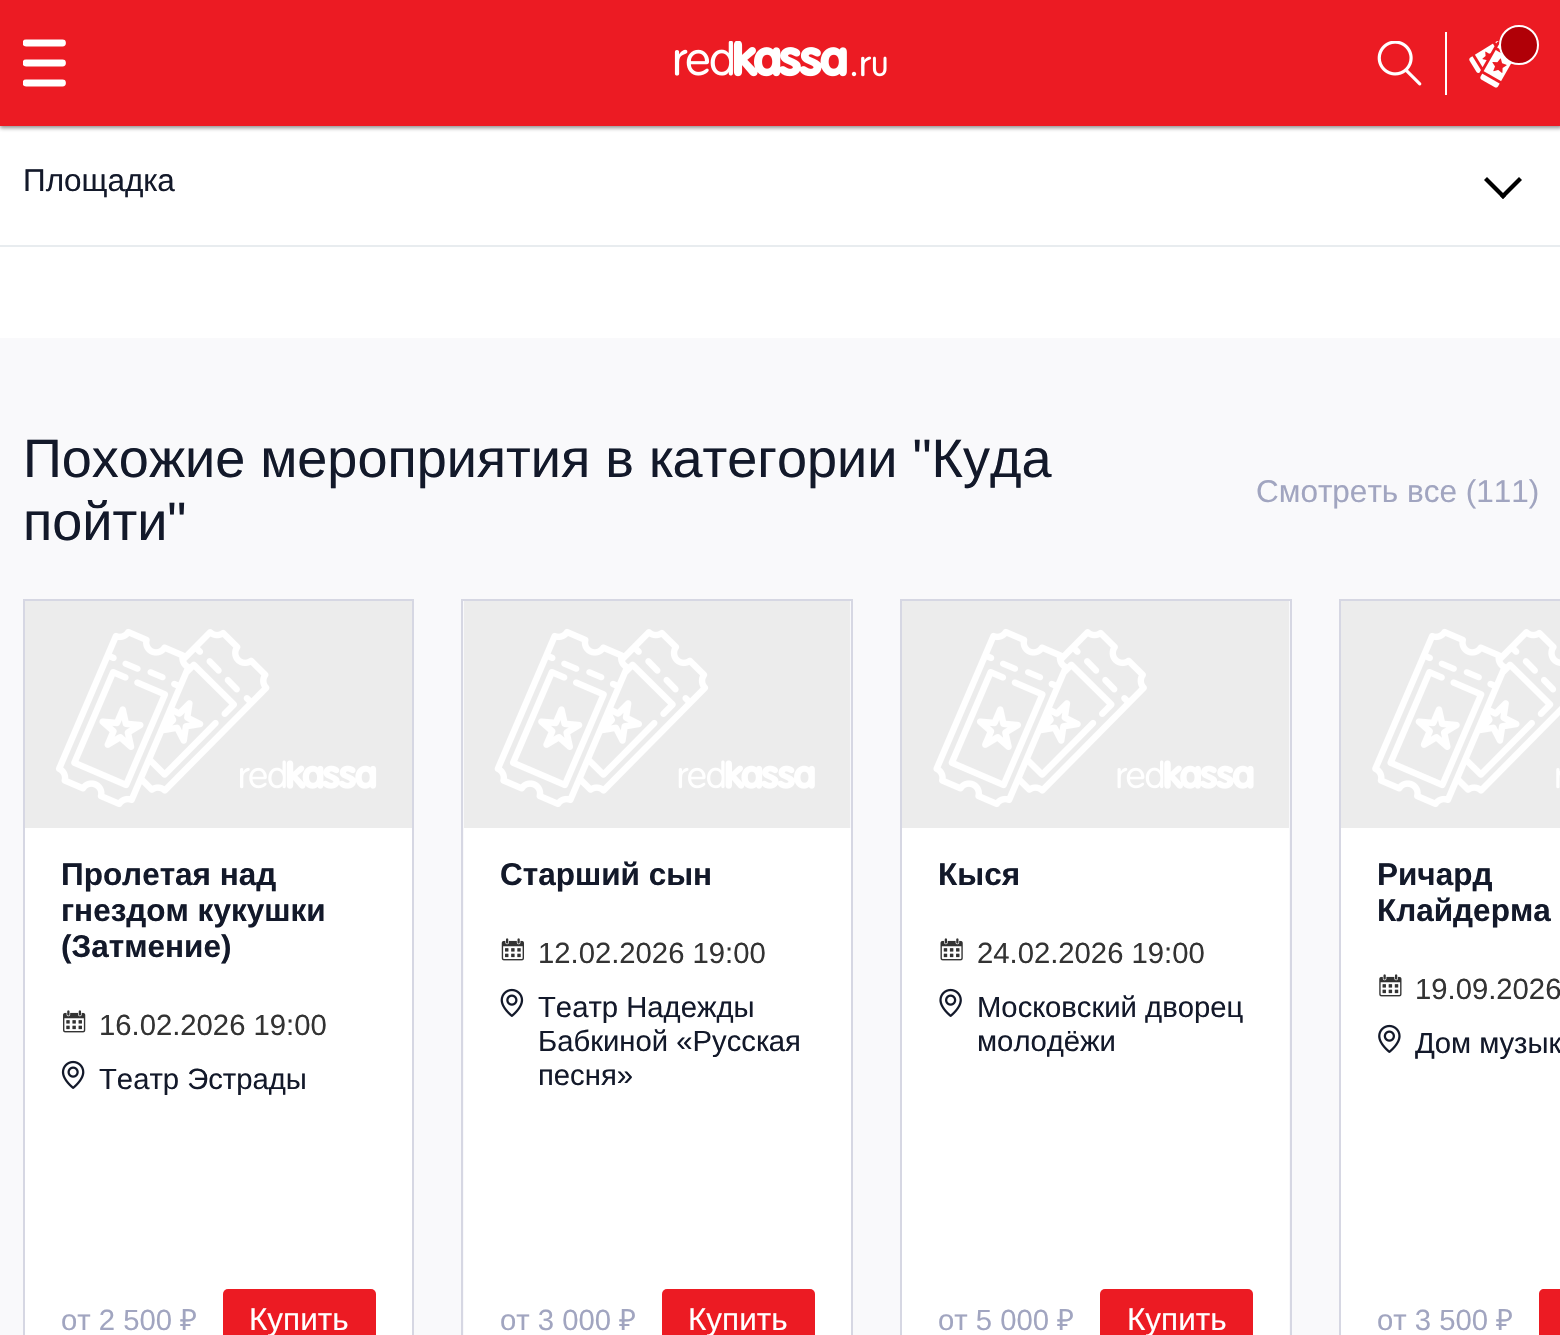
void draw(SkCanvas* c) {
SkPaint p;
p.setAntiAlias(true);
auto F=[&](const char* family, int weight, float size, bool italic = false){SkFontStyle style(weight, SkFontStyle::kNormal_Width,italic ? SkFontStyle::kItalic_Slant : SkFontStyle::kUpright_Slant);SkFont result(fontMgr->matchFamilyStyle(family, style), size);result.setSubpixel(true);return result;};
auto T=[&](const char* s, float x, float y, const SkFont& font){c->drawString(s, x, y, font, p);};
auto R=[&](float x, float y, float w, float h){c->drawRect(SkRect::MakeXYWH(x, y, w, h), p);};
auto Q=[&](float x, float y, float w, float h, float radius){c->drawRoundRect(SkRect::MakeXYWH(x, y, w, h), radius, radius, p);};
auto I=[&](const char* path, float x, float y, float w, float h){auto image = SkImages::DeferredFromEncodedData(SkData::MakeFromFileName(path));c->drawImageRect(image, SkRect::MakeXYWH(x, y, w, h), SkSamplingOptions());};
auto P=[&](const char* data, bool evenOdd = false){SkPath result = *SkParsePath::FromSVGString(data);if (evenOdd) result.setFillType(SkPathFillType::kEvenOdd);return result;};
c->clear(0xffffffff);
p.setColor(0x801f1f1f);
p.setMaskFilter(SkMaskFilter::MakeBlur(kNormal_SkBlurStyle, 2));
c->drawRect(SkRect::MakeXYWH(0,2,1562,126),p);
p.setMaskFilter(nullptr);
p.setColor(0xffec1b23);
R(0,0,1560,126);
c->save();
c->clipRect(SkRect::MakeXYWH(23,38,45,50));
p.setStroke(true);
p.setStrokeWidth(6.8);
p.setStrokeCap(SkPaint::kRound_Cap);
p.setColor(0xffffffff);
c->drawPath(P("M26 43h36.5m-36.5 20h36.5m-36.5 20h36.5"),p);
c->restore();
I("1.png",674,41,213,36);
I("2.png",1377,41,45,45);
p.setStroke(false);
R(1445,32,2,63);
I("3.png",1469,41,43,47);
p.setColor(0xffb00007);
c->drawCircle(1519,45,19,p);
p.setStroke(true);
p.setStrokeWidth(2);
p.setStrokeCap(SkPaint::kButt_Cap);
p.setColor(0xffffffff);
c->drawCircle(1519,45,19,p);
p.setStroke(false);
p.setColor(0xffe8ecef);
R(0,245,1560,2);
auto f1 = F("Liberation Sans",400,31.5);
p.setColor(0xff13192a);
T("Площадка",23,191,f1);
p.setColor(0xff000000);
c->drawPath(P("M1503 199l-19-19l3-3l19 19z"),p);
c->drawPath(P("M1503 199l-3-3l19-19l3 3z"),p);
p.setColor(0xfff9f9fb);
R(0,338,1560,997);
auto f2 = F("Liberation Sans",400,54);
p.setColor(0xff13192a);
T("Похожие мероприятия в категории \"Куда",23,477,f2);
T("пойти\"",23,540,f2);
p.setColor(0xffa1a5c0);
T("Смотреть все (111)",1256,502,f1);
p.setStroke(true);
p.setColor(0xffd6d7e3);
c->drawRect(SkRect::MakeXYWH(24,600,389,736),p);
I("4.png",25,601,387,227);
p.setStroke(false);
p.setColor(0xffffffff);
R(25,828,387,507);
auto f3 = F("Liberation Sans",700,31.5);
p.setColor(0xff13192a);
T("Пролетая над",61,885,f3);
T("гнездом кукушки",61,921,f3);
T("(Затмение)",61,957,f3);
I("5.png",63,1010,23,23);
auto f4 = F("Liberation Sans",400,29.25);
p.setColor(0xff333333);
T("16.02.2026 19:00",99,1035,f4);
I("6.png",61,1060,24,29);
p.setColor(0xff13192a);
T("Театр Эстрады",99,1089,f4);
p.setColor(0xffa1a5c0);
T("от 2 500",61,1330,f4);
auto f5 = F("Noto Sans",400,29.25);
T("₽",180,1330,f5);
p.setColor(0xffec1b23);
Q(223,1289,153,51,5);
p.setColor(0xffffffff);
T("Купить",249,1330,f1);
p.setStroke(true);
p.setColor(0xffd6d7e3);
c->drawRect(SkRect::MakeXYWH(462,600,390,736),p);
I("7.png",464,601,386,227);
p.setStroke(false);
p.setColor(0xffffffff);
R(464,828,387,507);
p.setColor(0xff13192a);
T("Старший сын",500,885,f3);
I("8.png",501,938,23,23);
p.setColor(0xff333333);
T("12.02.2026 19:00",538,963,f4);
I("9.png",500,988,24,29);
p.setColor(0xff13192a);
T("Театр Надежды",538,1017,f4);
T("Бабкиной «Русская",538,1051,f4);
T("песня»",538,1085,f4);
p.setColor(0xffa1a5c0);
T("от 3 000",500,1330,f4);
T("₽",619,1330,f5);
p.setColor(0xffec1b23);
Q(662,1289,153,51,5);
p.setColor(0xffffffff);
T("Купить",688,1330,f1);
p.setStroke(true);
p.setColor(0xffd6d7e3);
c->drawRect(SkRect::MakeXYWH(901,600,390,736),p);
I("10.png",902,601,387,227);
p.setStroke(false);
p.setColor(0xffffffff);
R(902,828,387,507);
p.setColor(0xff13192a);
T("Кыся",938,885,f3);
I("11.png",940,938,23,23);
p.setColor(0xff333333);
T("24.02.2026 19:00",977,963,f4);
I("12.png",939,988,23,29);
p.setColor(0xff13192a);
T("Московский дворец",977,1017,f4);
T("молодёжи",977,1051,f4);
p.setColor(0xffa1a5c0);
T("от 5 000",938,1330,f4);
T("₽",1057,1330,f5);
p.setColor(0xffec1b23);
Q(1100,1289,153,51,5);
p.setColor(0xffffffff);
T("Купить",1127,1330,f1);
p.setStroke(true);
p.setColor(0xffd6d7e3);
c->drawRect(SkRect::MakeXYWH(1340,600,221,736),p);
I("13.png",1341,601,219,227);
p.setStroke(false);
p.setColor(0xffffffff);
R(1341,828,219,507);
p.setColor(0xff13192a);
T("Ричард",1377,885,f3);
T("Клайдерма",1377,921,f3);
I("14.png",1379,974,23,23);
p.setColor(0xff333333);
T("19.09.2026",1415,999,f4);
I("15.png",1378,1024,23,29);
p.setColor(0xff13192a);
T("Дом музык",1415,1053,f4);
p.setColor(0xffa1a5c0);
T("от 3 500",1377,1330,f4);
T("₽",1496,1330,f5);
p.setColor(0xffec1b23);
c->drawPath(P("M1544 1289h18v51h-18c-3 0-5-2-5-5v-41c0-3 2-5 5-5z"),p);
}
